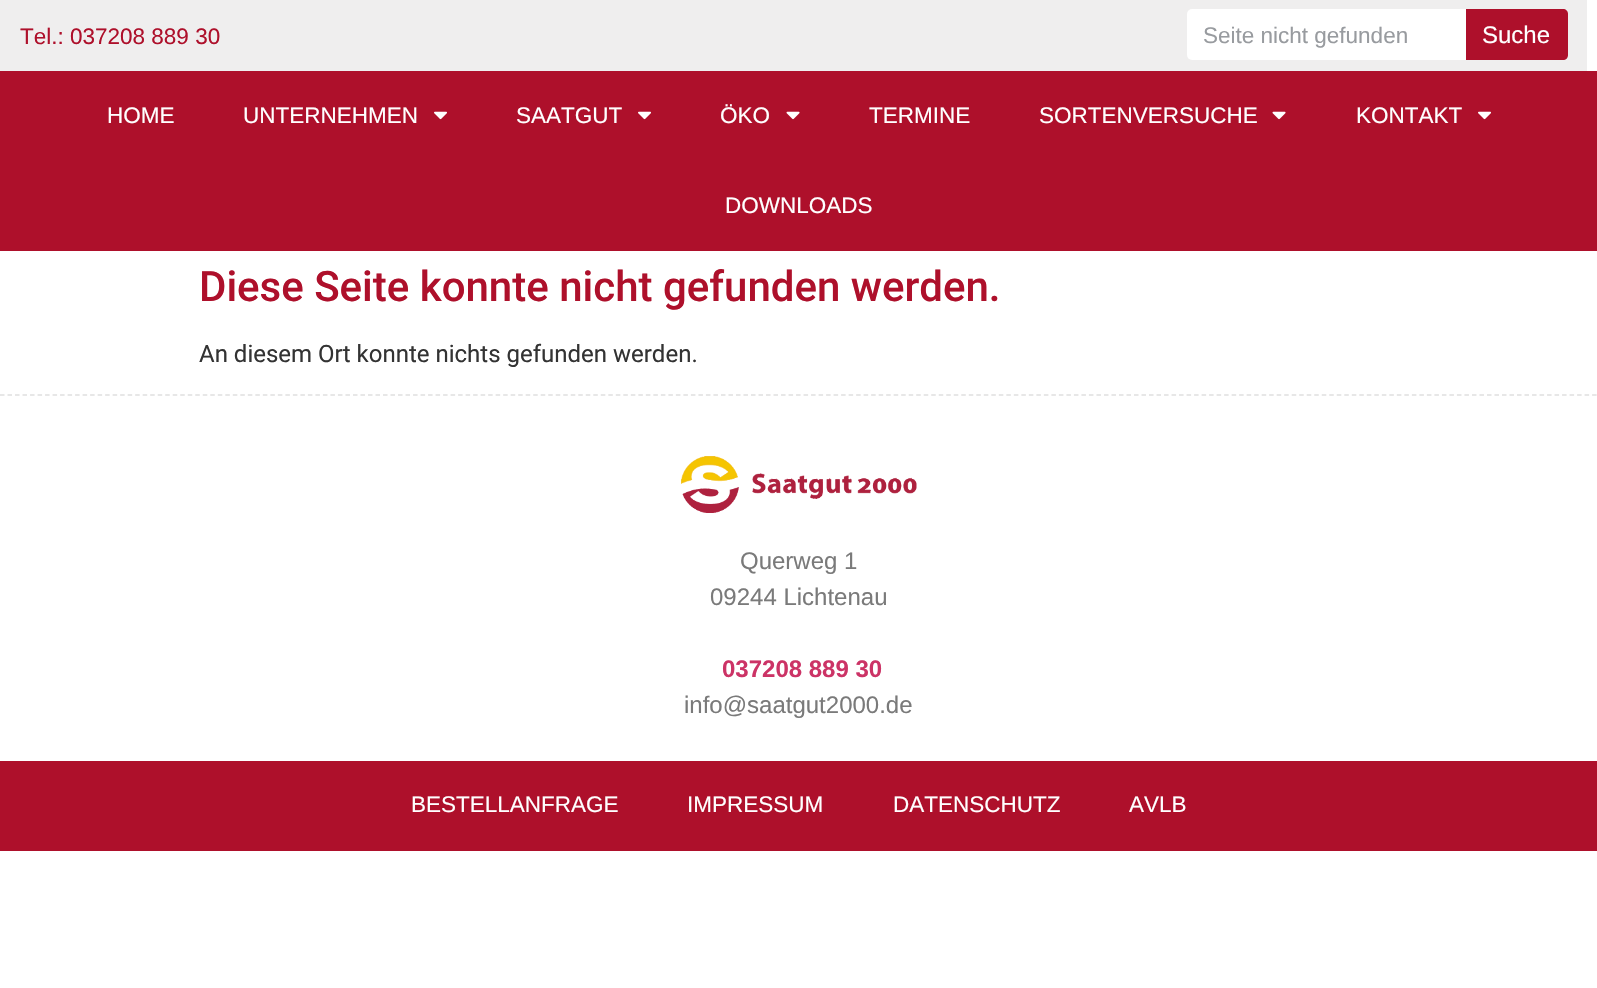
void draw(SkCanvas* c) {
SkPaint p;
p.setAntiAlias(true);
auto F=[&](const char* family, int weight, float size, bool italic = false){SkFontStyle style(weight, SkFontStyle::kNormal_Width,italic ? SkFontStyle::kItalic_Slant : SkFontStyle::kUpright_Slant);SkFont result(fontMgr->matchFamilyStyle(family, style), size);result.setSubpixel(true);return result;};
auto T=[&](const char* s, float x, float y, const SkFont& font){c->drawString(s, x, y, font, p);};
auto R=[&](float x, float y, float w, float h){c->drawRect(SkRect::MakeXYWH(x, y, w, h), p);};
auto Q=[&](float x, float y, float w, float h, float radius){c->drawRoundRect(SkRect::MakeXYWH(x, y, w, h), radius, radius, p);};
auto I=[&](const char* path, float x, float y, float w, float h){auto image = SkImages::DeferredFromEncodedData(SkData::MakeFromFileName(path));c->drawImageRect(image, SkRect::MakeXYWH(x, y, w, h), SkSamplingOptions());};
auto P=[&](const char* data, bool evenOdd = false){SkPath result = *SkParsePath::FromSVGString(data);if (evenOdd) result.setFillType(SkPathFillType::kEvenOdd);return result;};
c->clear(0xffffffff);
p.setColor(0xffefeeee);
R(0,0,1587,71);
auto f1 = F("Liberation Sans",400,22.5);
p.setColor(0xffae102b);
T("Tel.: 037208 889 30",20,44,f1);
p.setColor(0xffffffff);
Q(1187,9,381,51,5);
p.setColor(0xff989b9f);
T("Seite nicht gefunden",1203,43,f1);
p.setColor(0xffae102b);
c->drawPath(P("M1466 9h97c3 0 5 2 5 5v41c0 3-2 5-5 5h-97z"),p);
auto f2 = F("Liberation Sans",400,24);
p.setColor(0xffffffff);
T("Suche",1482,43,f2);
p.setColor(0xffae102b);
R(0,71,1597,180);
p.setColor(0xffffffff);
T("HOME",107,123,f1);
T("UNTERNEHMEN",243,123,f1);
I("1.png",434,111,13,9);
T("SAATGUT",516,123,f1);
I("1.png",638,111,13,9);
T("ÖKO",720,123,f1);
I("2.png",786,111,14,9);
T("TERMINE",869,123,f1);
T("SORTENVERSUCHE",1039,123,f1);
I("2.png",1272,111,14,9);
T("KONTAKT",1356,123,f1);
I("1.png",1478,111,13,9);
T("DOWNLOADS",725,213,f1);
auto f3 = F("Roboto",500,42);
p.setColor(0xffae102b);
T("Diese Seite konnte nicht gefunden werden.",199,301,f3);
auto f4 = F("Roboto",400,24);
p.setColor(0xff333333);
T("An diesem Ort konnte nichts gefunden werden.",199,362,f4);
p.setStroke(true);
p.setStrokeWidth(1.5);
p.setColor(0xffe0dfdf);
p.setPathEffect(SkDashPathEffect::Make({{4.5f,3.01f}}, 0));
c->drawPath(P("M0 395h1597.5"),p);
p.setPathEffect(nullptr);
I("3.png",681,456,236,57);
p.setStroke(false);
p.setColor(0xff7a7a7a);
T("Querweg 1",740,569,f2);
T("09244 Lichtenau",710,605,f2);
auto f5 = F("Liberation Sans",700,24);
p.setColor(0xffcc3366);
T("037208 889 30",722,677,f5);
p.setColor(0xff7a7a7a);
T("info@saatgut2000.de",684,713,f2);
p.setColor(0xffae102b);
R(0,761,1597,90);
p.setColor(0xffffffff);
T("BESTELLANFRAGE",411,812,f1);
T("IMPRESSUM",687,812,f1);
T("DATENSCHUTZ",893,812,f1);
T("AVLB",1129,812,f1);
}
